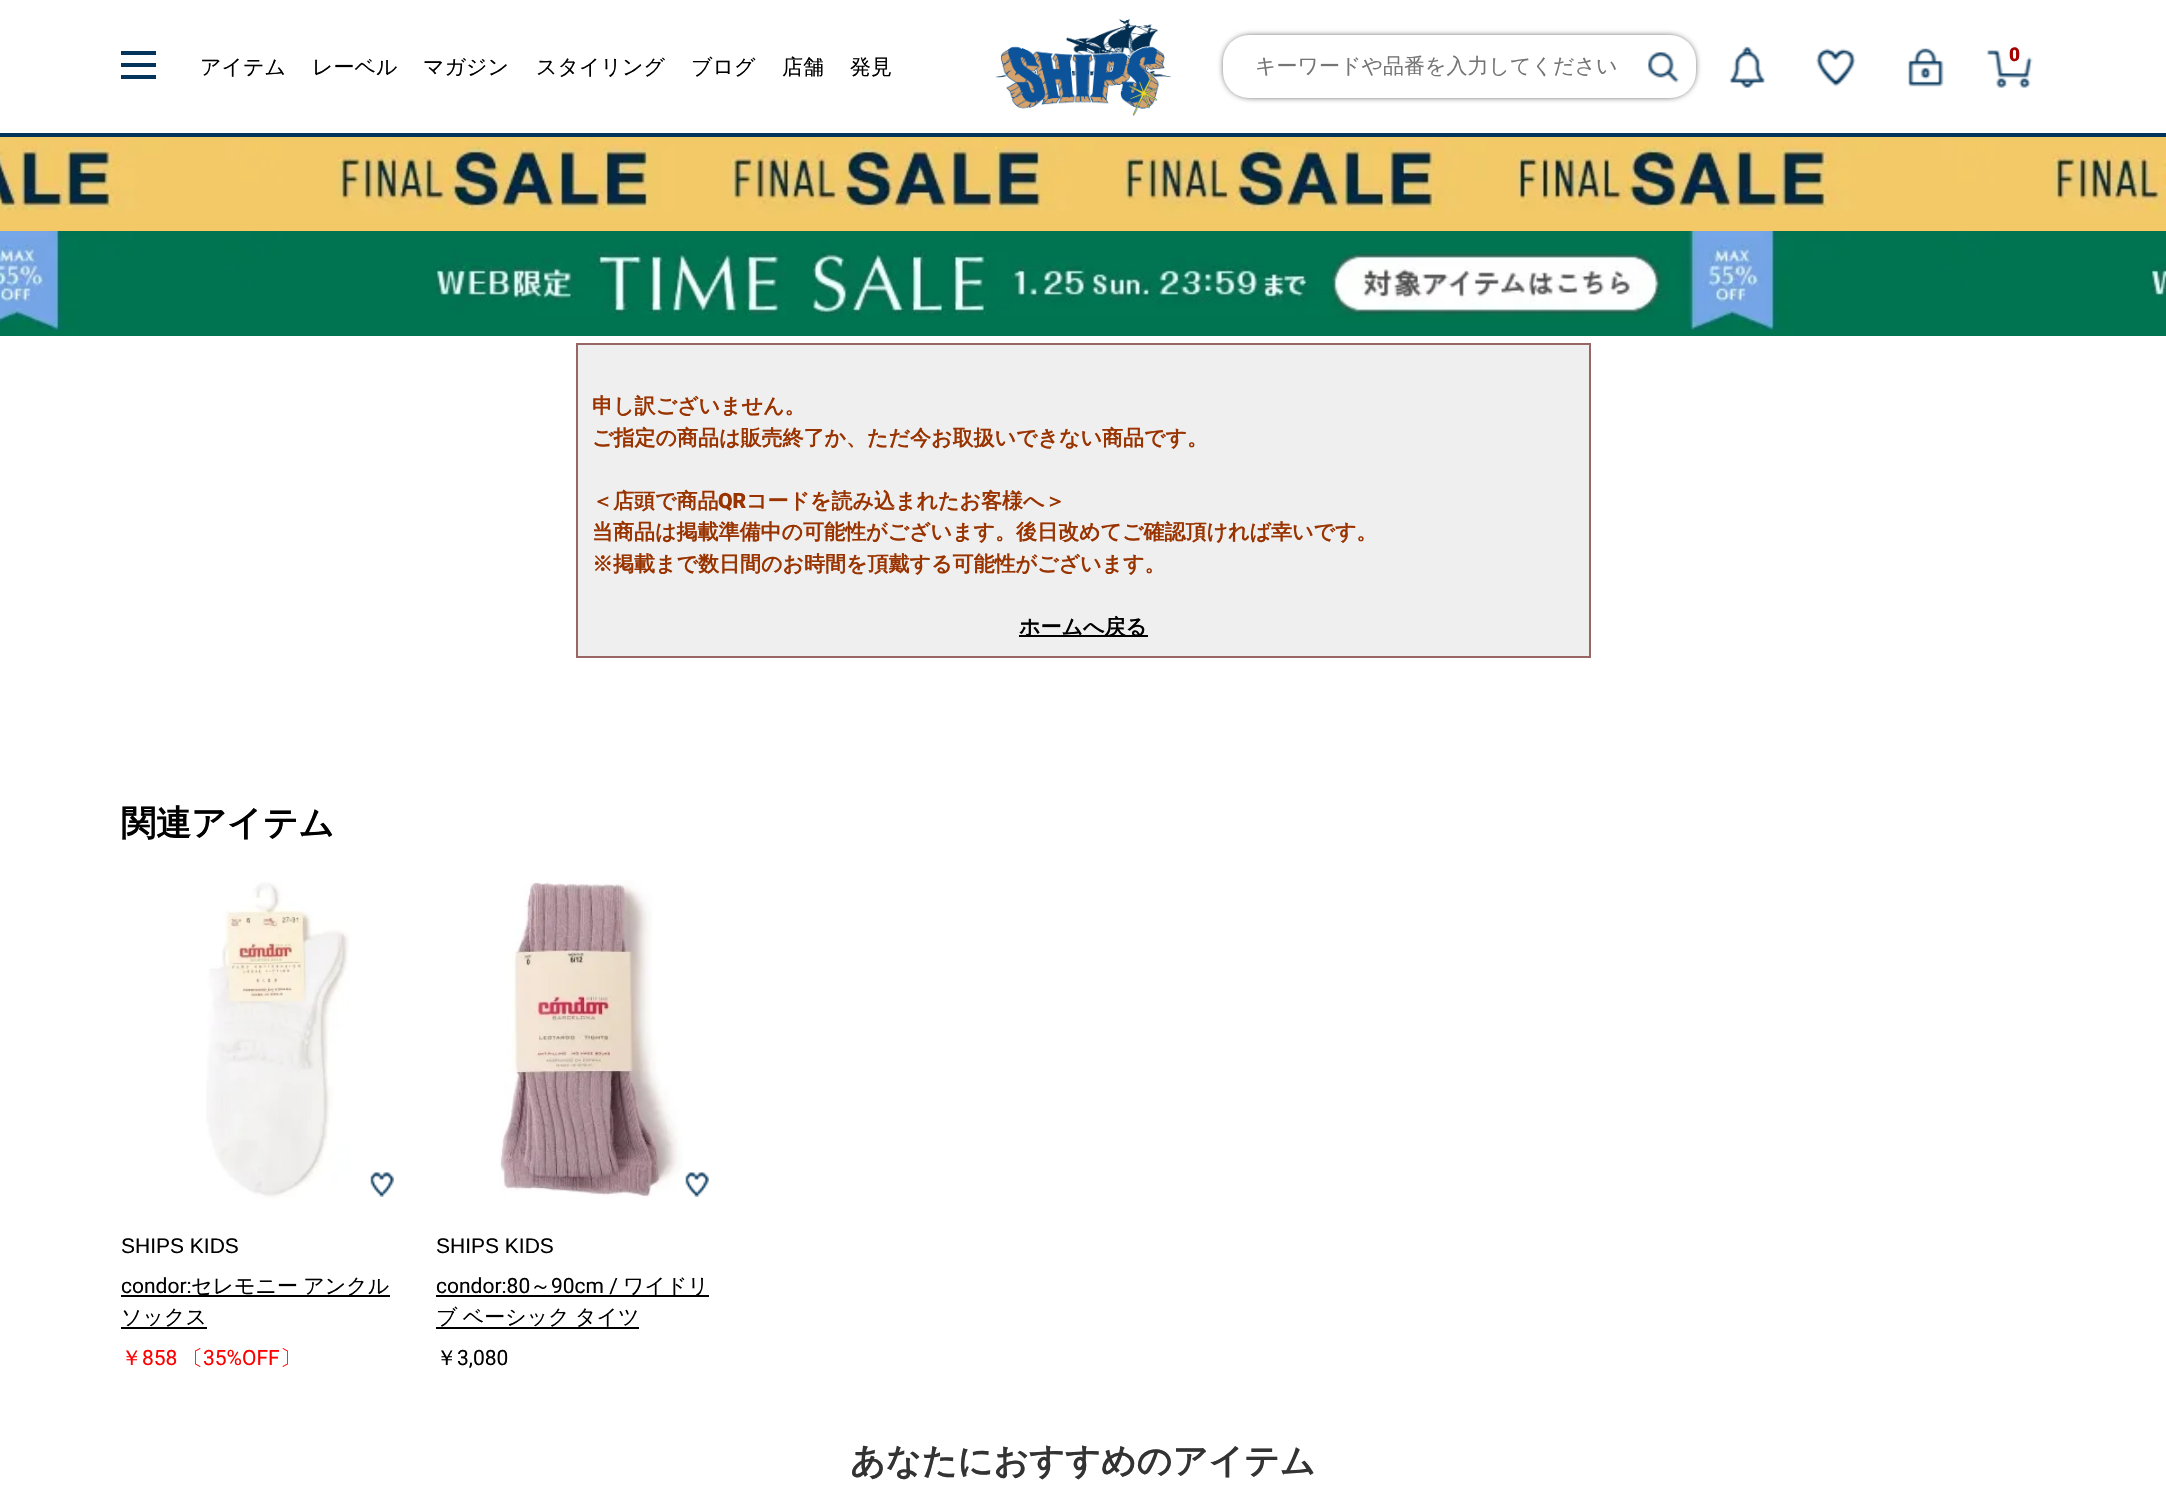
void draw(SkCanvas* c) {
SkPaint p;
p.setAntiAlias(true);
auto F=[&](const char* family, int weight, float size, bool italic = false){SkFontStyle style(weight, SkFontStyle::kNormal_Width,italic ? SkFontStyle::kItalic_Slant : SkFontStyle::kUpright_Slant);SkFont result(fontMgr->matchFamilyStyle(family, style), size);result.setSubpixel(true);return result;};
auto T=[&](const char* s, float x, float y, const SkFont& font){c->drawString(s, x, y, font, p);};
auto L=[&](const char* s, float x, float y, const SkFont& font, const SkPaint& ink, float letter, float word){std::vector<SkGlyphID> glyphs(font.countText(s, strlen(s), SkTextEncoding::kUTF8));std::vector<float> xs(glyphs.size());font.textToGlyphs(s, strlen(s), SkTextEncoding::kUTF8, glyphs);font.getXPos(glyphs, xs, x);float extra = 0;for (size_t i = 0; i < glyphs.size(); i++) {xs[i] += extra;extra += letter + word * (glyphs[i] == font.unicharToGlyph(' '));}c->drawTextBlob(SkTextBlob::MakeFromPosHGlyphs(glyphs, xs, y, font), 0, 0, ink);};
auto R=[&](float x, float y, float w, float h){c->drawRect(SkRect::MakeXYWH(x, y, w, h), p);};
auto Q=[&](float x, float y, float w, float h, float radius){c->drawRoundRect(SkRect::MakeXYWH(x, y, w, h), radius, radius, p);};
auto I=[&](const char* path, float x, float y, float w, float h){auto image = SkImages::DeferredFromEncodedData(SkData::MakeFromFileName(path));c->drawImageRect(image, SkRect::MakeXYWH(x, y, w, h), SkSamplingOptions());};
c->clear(0xffffffff);
p.setColor(0xff04345a);
R(0,133,2166,4);
R(121,63,35,4);
R(121,51,35,4);
R(121,75,35,4);
auto f1 = F("WenQuanYi Zen Hei",500,21);
p.setColor(0xff000000);
T("アイテム",200,74,f1);
T("レーベル",312,74,f1);
T("マガジン",423,74,f1);
T("スタイリング",536,74,f1);
T("ブログ",691,74,f1);
T("店舗",782,74,f1);
T("発見",850,74,f1);
I("1.png",995,19,176,97);
p.setMaskFilter(SkMaskFilter::MakeBlur(kNormal_SkBlurStyle, 3.5));
c->drawRoundRect(SkRect::MakeXYWH(1225,37,469,59),25,25,p);
p.setMaskFilter(nullptr);
p.setColor(0xffffffff);
Q(1223,35,473,63,26);
p.setColor(0xff757575);
T("キーワードや品番を入力してください",1255,73,f1);
I("2.png",1648,52,31,31);
I("3.png",1729,46,36,42);
I("4.png",1816,48,40,39);
I("5.png",1908,48,36,39);
I("6.png",1986,50,47,38);
auto f2 = F("Roboto",900,19);
p.setColor(0xffa50000);
L("0",2009,61,f2,p,-2,0);
I("7.png",0,137,2166,94);
I("8.png",343,152,1480,54);
I("9.png",0,231,2166,105);
I("10.png",440,231,1334,95);
p.setColor(0xffefefef);
c->drawRect(SkRect::MakeXYWH(577,344,1013,313),p);
p.setStroke(true);
p.setStrokeWidth(2);
p.setColor(0xff996666);
c->drawRect(SkRect::MakeXYWH(577,344,1013,313),p);
auto f3 = F("WenQuanYi Zen Hei",700,21);
p.setStroke(false);
p.setColor(0xff993300);
T("申し訳ございません。",592,413,f3);
T("ご指定の商品は販売終了か、ただ今お取扱いできない商品です。",592,445,f3);
T("＜店頭で商品",592,508,f3);
auto f4 = F("Roboto",900,21);
T("QR",718,508,f4);
T("コードを読み込まれたお客様へ＞",746,508,f3);
T("当商品は掲載準備中の可能性がございます。後日改めてご確認頂ければ幸いです。",592,539,f3);
T("※掲載まで数日間のお時間を頂戴する可能性がございます。",592,571,f3);
p.setColor(0xff000000);
R(1019,635,129,2);
T("ホームへ戻る",1019,634,f3);
auto f5 = F("WenQuanYi Zen Hei",700,35);
T("関連アイテム",121,835,f5);
I("11.png",206,882,144,317);
I("12.png",370,1172,24,25);
auto f6 = F("Liberation Sans",400,21);
T("SHIPS KIDS",121,1253,f6);
auto f7 = F("Roboto",400,21);
T("condor:",121,1293,f7);
R(121,1295,269,2);
L("セレモニー アンクル",191,1293,f1,p,0,-1);
T("ソックス",121,1324,f1);
R(121,1327,86,2);
p.setColor(0xffff0000);
T("￥",121,1365,f1);
T("858",142,1365,f7);
T("〔",182,1365,f1);
T("35%OFF",203,1365,f7);
T("〕",280,1365,f1);
I("13.png",499,880,184,319);
p.setColor(0xffffffff);
Q(677,1166,39,38,19);
I("12.png",685,1172,24,25);
p.setColor(0xff000000);
T("SHIPS KIDS",436,1253,f6);
T("condor:80",436,1293,f7);
T("～",530,1293,f1);
R(436,1295,273,2);
T("90cm /",551,1293,f7);
T("ワイドリ",623,1293,f1);
R(436,1327,203,2);
L("ブ ベーシック タイツ",436,1324,f1,p,0,-1);
T("￥",436,1365,f1);
T("3,080",457,1365,f7);
p.setColor(0xff333333);
T("あなたにおすすめのアイテム",850,1473,f5);
}
